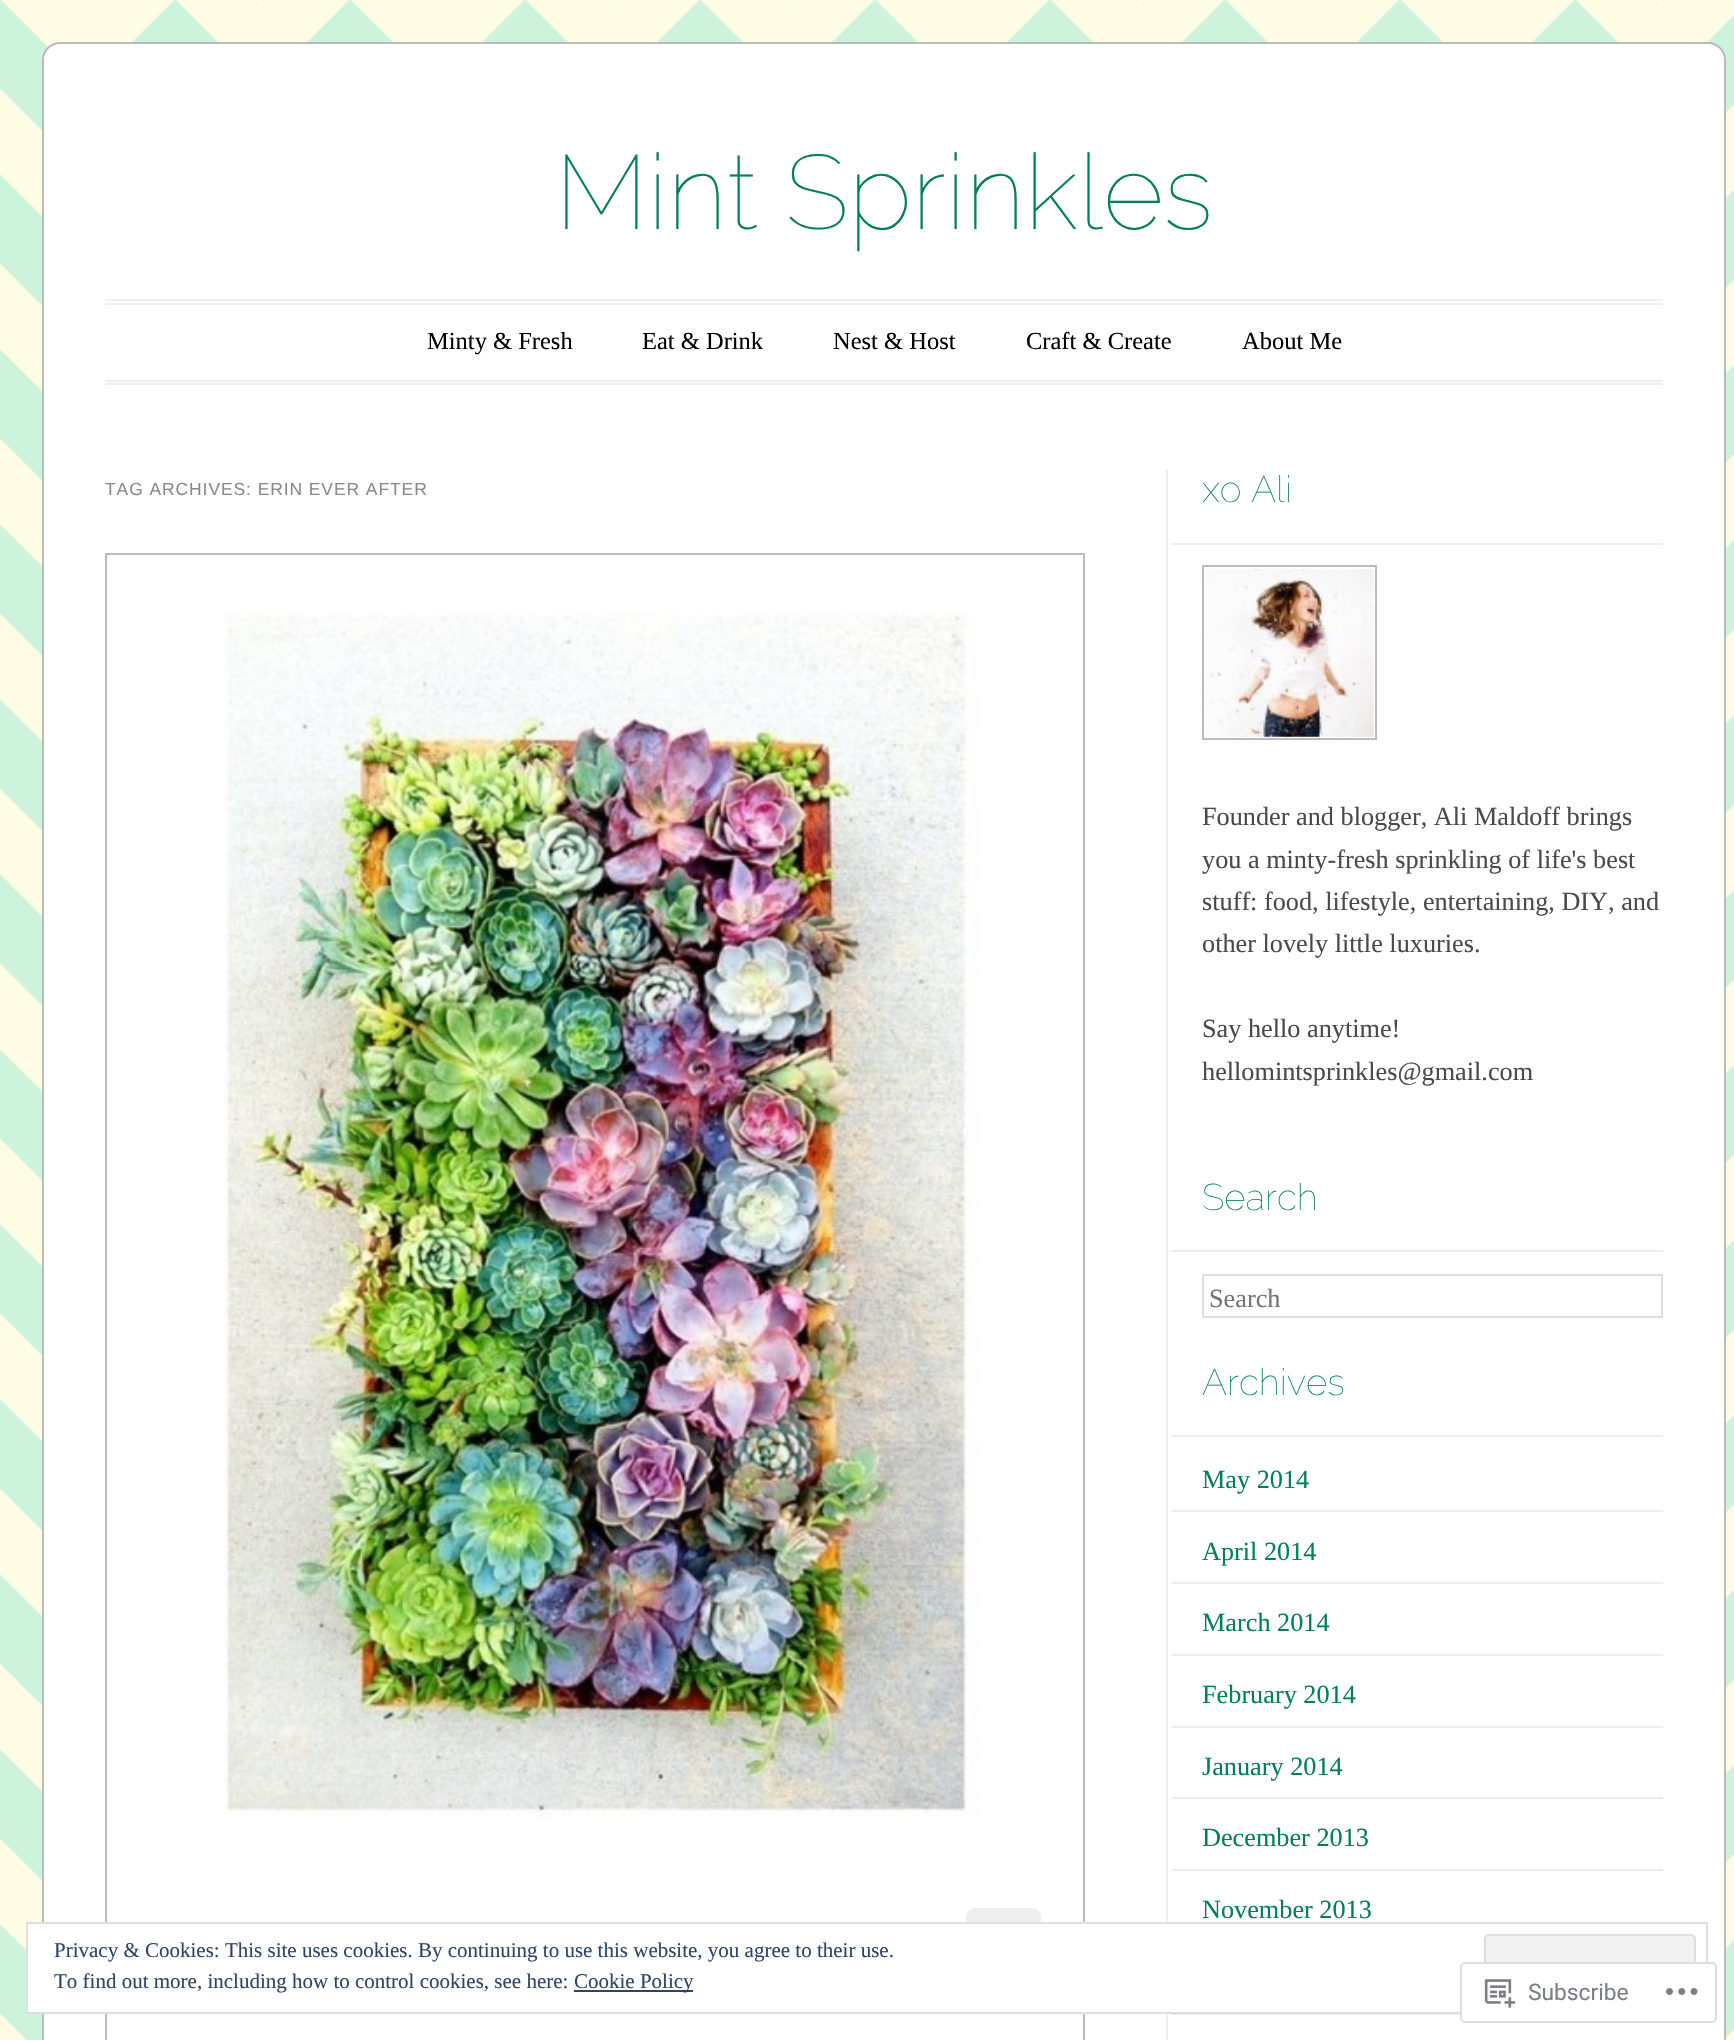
void draw(SkCanvas* c) {
SkPaint p;
p.setAntiAlias(true);
auto F=[&](const char* family, int weight, float size, bool italic = false){SkFontStyle style(weight, SkFontStyle::kNormal_Width,italic ? SkFontStyle::kItalic_Slant : SkFontStyle::kUpright_Slant);SkFont result(fontMgr->matchFamilyStyle(family, style), size);result.setSubpixel(true);return result;};
auto T=[&](const char* s, float x, float y, const SkFont& font){c->drawString(s, x, y, font, p);};
auto L=[&](const char* s, float x, float y, const SkFont& font, const SkPaint& ink, float letter, float word){std::vector<SkGlyphID> glyphs(font.countText(s, strlen(s), SkTextEncoding::kUTF8));std::vector<float> xs(glyphs.size());font.textToGlyphs(s, strlen(s), SkTextEncoding::kUTF8, glyphs);font.getXPos(glyphs, xs, x);float extra = 0;for (size_t i = 0; i < glyphs.size(); i++) {xs[i] += extra;extra += letter + word * (glyphs[i] == font.unicharToGlyph(' '));}c->drawTextBlob(SkTextBlob::MakeFromPosHGlyphs(glyphs, xs, y, font), 0, 0, ink);};
auto R=[&](float x, float y, float w, float h){c->drawRect(SkRect::MakeXYWH(x, y, w, h), p);};
auto Q=[&](float x, float y, float w, float h, float radius){c->drawRoundRect(SkRect::MakeXYWH(x, y, w, h), radius, radius, p);};
auto I=[&](const char* path, float x, float y, float w, float h){auto image = SkImages::DeferredFromEncodedData(SkData::MakeFromFileName(path));c->drawImageRect(image, SkRect::MakeXYWH(x, y, w, h), SkSamplingOptions());};
c->clear(0xffffffff);
I("1.png",0,0,1734,2040);
p.setColor(0xffffffff);
c->drawRoundRect(SkRect::MakeXYWH(43,43,1682,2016),17,17,p);
p.setStroke(true);
p.setStrokeWidth(2);
p.setColor(0xffbbbbbb);
c->drawRoundRect(SkRect::MakeXYWH(43,43,1682,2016),17,17,p);
auto f1 = F("Raleway",100,105);
p.setStroke(false);
p.setColor(0xff017e5c);
T("Mint Sprinkles",555,229,f1);
p.setColor(0xffeeeeee);
R(105,299,1558,2);
R(105,303,1558,2);
R(105,380,1558,2);
R(105,383,1558,2);
auto f2 = F("Liberation Serif",400,24.5);
p.setColor(0xff000000);
T("Minty & Fresh",427,349,f2);
T("Eat & Drink",642,349,f2);
T("Nest & Host",833,349,f2);
T("Craft & Create",1026,349,f2);
T("About Me",1242,349,f2);
auto f3 = F("Liberation Sans",400,17.5);
p.setColor(0xff8a8a8a);
L("TAG ARCHIVES: ERIN EVER AFTER",105,495,f3,p,.9,0);
p.setStroke(true);
p.setColor(0xffbbbbbb);
c->drawRect(SkRect::MakeXYWH(106,554,978,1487),p);
I("2.png",223,612,757,1206);
p.setStroke(false);
p.setColor(0xffeeeeee);
Q(966,1908,75,49,9);
R(1166,469,2,1571);
R(1171,543,492,2);
auto f4 = F("Raleway",100,37);
p.setColor(0xff017e5c);
T("xo Ali",1202,502,f4);
p.setStroke(true);
p.setColor(0xffbbbbbb);
c->drawRect(SkRect::MakeXYWH(1203,566,173,173),p);
I("3.png",1206,568,168,169);
auto f5 = F("Liberation Serif",400,26.25);
p.setStroke(false);
p.setColor(0xff4a4a4a);
T("Founder and blogger, Ali Maldoff brings",1202,825,f5);
T("you a minty-fresh sprinkling of life's best",1202,868,f5);
T("stuff: food, lifestyle, entertaining, DIY, and",1202,910,f5);
T("other lovely little luxuries.",1202,952,f5);
T("Say hello anytime!",1202,1037,f5);
T("hellomintsprinkles@gmail.com",1202,1080,f5);
p.setColor(0xffeeeeee);
R(1171,1250,492,2);
p.setColor(0xff017e5c);
T("Search",1202,1210,f4);
p.setStroke(true);
p.setColor(0xffdddddd);
c->drawRect(SkRect::MakeXYWH(1203,1275,459,42),p);
p.setStroke(false);
p.setColor(0xff757575);
T("Search",1209,1307,f5);
p.setColor(0xffeeeeee);
R(1171,1435,492,2);
p.setColor(0xff017e5c);
T("Archives",1202,1395,f4);
p.setColor(0xffeeeeee);
R(1171,1510,492,2);
p.setColor(0xff017e5c);
T("May 2014",1202,1488,f5);
p.setColor(0xffeeeeee);
R(1171,1582,492,2);
p.setColor(0xff017e5c);
T("April 2014",1202,1560,f5);
p.setColor(0xffeeeeee);
R(1171,1654,492,2);
p.setColor(0xff017e5c);
T("March 2014",1202,1631,f5);
p.setColor(0xffeeeeee);
R(1171,1726,492,2);
p.setColor(0xff017e5c);
T("February 2014",1202,1703,f5);
p.setColor(0xffeeeeee);
R(1171,1797,492,2);
p.setColor(0xff017e5c);
T("January 2014",1202,1775,f5);
p.setColor(0xffeeeeee);
R(1171,1869,492,2);
p.setColor(0xff017e5c);
T("December 2013",1202,1846,f5);
T("November 2013",1202,1918,f5);
p.setColor(0xffeeeeee);
R(1171,2014,492,1);
p.setColor(0xffffffff);
R(28,1924,1140,88);
p.setStroke(true);
p.setColor(0xffdedede);
c->drawRect(SkRect::MakeXYWH(27,1923,1680,90),p);
auto f6 = F("Liberation Serif",400,21);
p.setStroke(false);
p.setColor(0xff2e4467);
T("Privacy & Cookies: This site uses cookies. By continuing to use this website, you agree to their use.",54,1957,f6);
p.setColor(0xfff3f3f3);
c->drawRoundRect(SkRect::MakeXYWH(1485,1935,210,66),4,4,p);
p.setStroke(true);
p.setColor(0xffdedede);
c->drawRoundRect(SkRect::MakeXYWH(1485,1935,210,66),4,4,p);
p.setStroke(false);
p.setColor(0xff2e4467);
T("To find out more, including how to control cookies, see here:",54,1988,f6);
R(574,1990,119,2);
T("Cookie Policy",574,1988,f6);
p.setColor(0xfaffffff);
Q(1460,1962,257,61,5);
p.setStroke(true);
p.setColor(0xfadcdcde);
c->drawRoundRect(SkRect::MakeXYWH(1461,1963,255,59),4,4,p);
I("4.png",1484,1979,32,29);
auto f7 = F("Roboto",400,22.75);
p.setStroke(false);
p.setColor(0xff7b7f84);
T("Subscribe",1528,2000,f7);
I("5.png",1666,1988,32,7);
}
